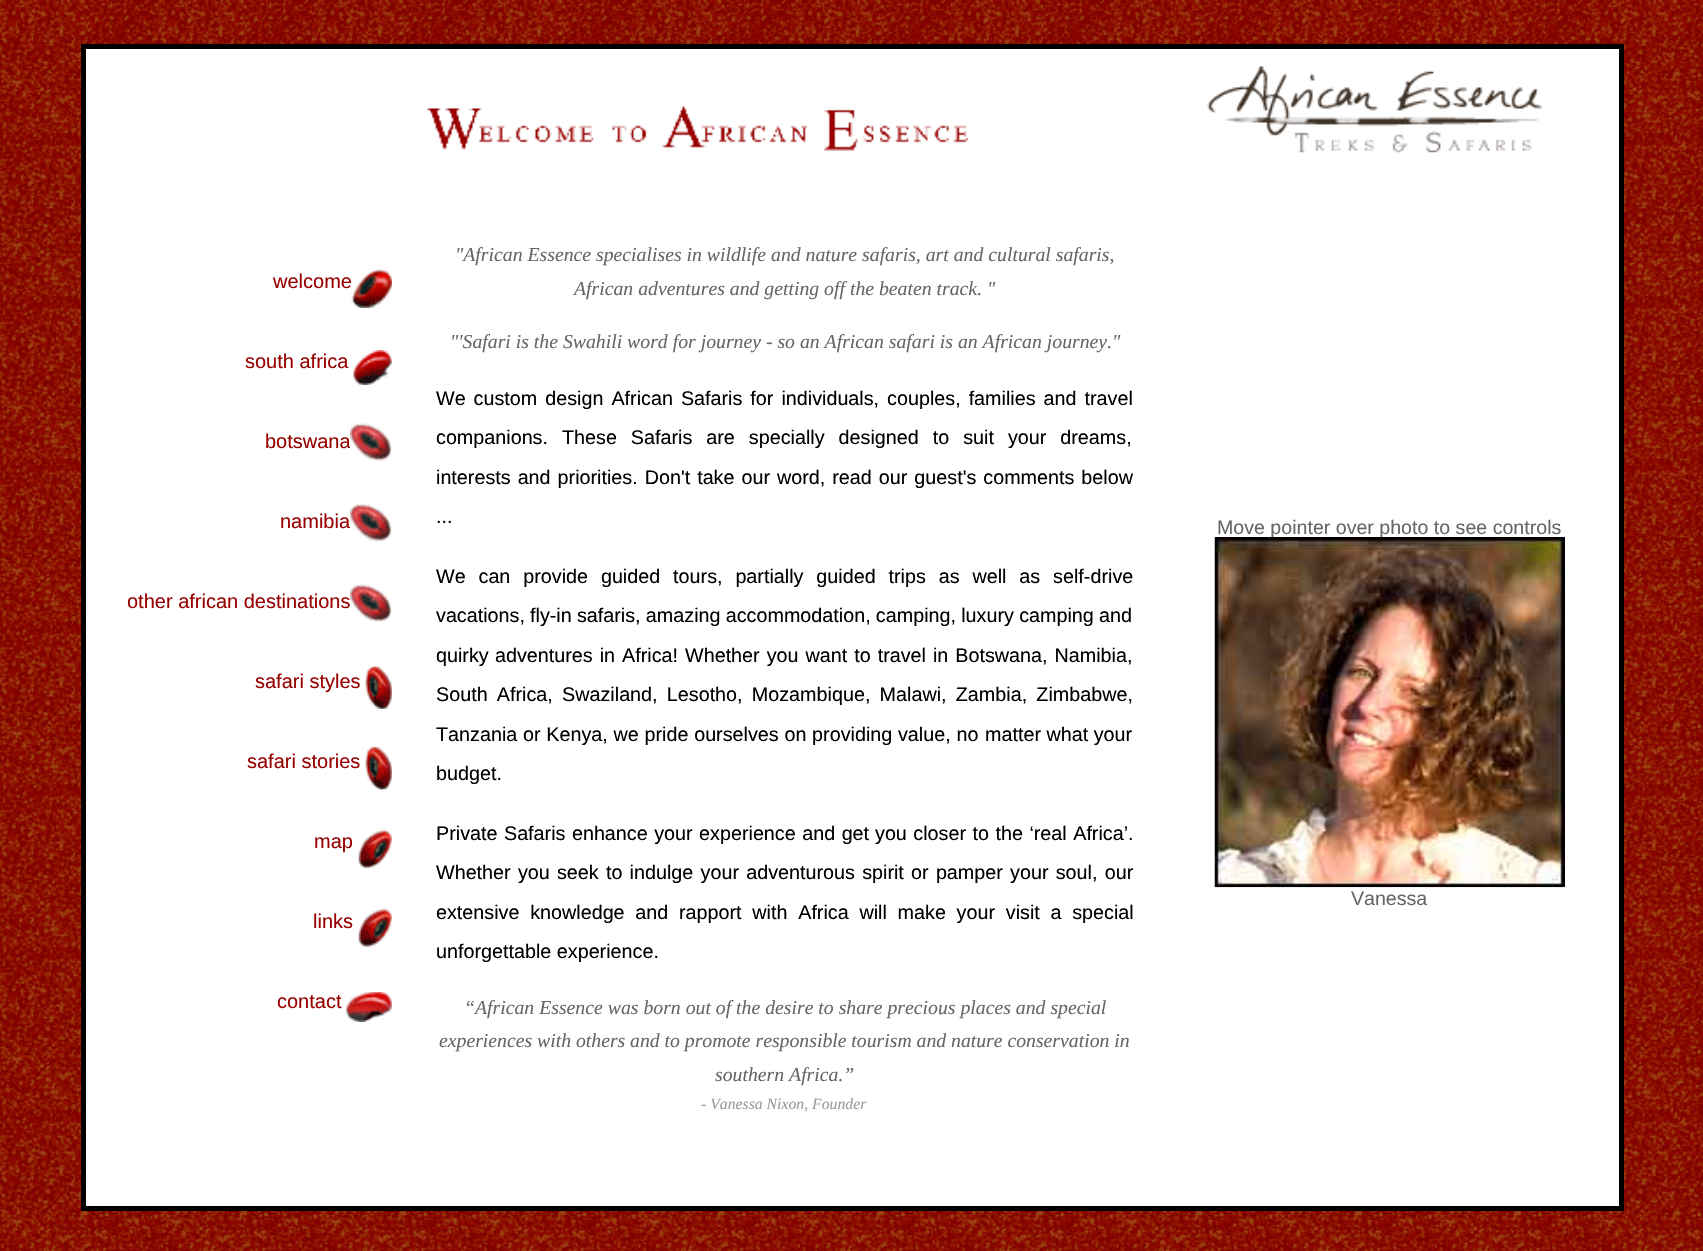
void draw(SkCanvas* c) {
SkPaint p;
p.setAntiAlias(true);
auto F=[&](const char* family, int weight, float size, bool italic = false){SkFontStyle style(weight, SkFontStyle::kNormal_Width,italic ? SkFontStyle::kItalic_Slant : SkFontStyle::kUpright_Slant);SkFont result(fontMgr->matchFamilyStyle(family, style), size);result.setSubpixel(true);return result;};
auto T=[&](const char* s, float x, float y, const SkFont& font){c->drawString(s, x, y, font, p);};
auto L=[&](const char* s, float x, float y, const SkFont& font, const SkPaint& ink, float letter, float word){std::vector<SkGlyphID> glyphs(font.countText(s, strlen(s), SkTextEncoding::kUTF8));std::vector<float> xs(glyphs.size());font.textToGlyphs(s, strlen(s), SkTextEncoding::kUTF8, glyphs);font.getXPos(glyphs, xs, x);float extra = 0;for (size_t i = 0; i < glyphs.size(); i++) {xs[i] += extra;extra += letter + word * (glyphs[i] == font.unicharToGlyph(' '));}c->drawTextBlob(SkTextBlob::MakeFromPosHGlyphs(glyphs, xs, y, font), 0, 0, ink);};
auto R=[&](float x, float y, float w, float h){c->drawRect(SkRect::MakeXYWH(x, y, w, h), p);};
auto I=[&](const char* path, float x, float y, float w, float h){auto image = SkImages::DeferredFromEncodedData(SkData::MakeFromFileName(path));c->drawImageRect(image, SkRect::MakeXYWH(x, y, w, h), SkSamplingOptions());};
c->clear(0xffffffff);
I("1.png",0,0,1703,1251);
p.setColor(0xffffffff);
c->drawRect(SkRect::MakeXYWH(83.5,46.5,1538,1162),p);
p.setStroke(true);
p.setStrokeWidth(5);
p.setColor(0xff000000);
c->drawRect(SkRect::MakeXYWH(83.5,46.5,1538,1162),p);
auto f1 = F("Liberation Serif",400,19.75,true);
p.setStroke(false);
p.setColor(0xff666666);
T("\"African Essence specialises in wildlife and nature safaris, art and cultural safaris,",455,261,f1);
T("African adventures and getting off the beaten track. \"",574,295,f1);
T("\"'Safari is the Swahili word for journey - so an African safari is an African journey.\"",450,348,f1);
auto f2 = F("Liberation Sans",400,19.75);
p.setColor(0xff000000);
L("We custom design African Safaris for individuals, couples, families and travel",436,405,f2,p,0,2.5);
L("companions. These Safaris are specially designed to suit your dreams,",436,444,f2,p,0,8.5);
L("interests and priorities. Don't take our word, read our guest's comments below",436,484,f2,p,0,1.5);
T("...",436,523,f2);
L("We can provide guided tours, partially guided trips as well as self-drive",436,583,f2,p,0,7.4);
T("vacations,",436,622,f2);
L("fly-in safaris, amazing accommodation, camping, luxury camping and",530,622,f2,p,0,-.25);
T("quirky",436,662,f2);
L("adventures in Africa! Whether you want to travel in Botswana, Namibia,",495,662,f2,p,0,1.5);
L("South Africa, Swaziland, Lesotho, Mozambique, Malawi, Zambia, Zimbabwe,",436,701,f2,p,0,3.75);
L("Tanzania or Kenya, we pride ourselves on providing value, no",436,741,f2,p,0,.25);
T("matter what your",985,741,f2);
T("budget.",436,780,f2);
L("Private Safaris enhance your experience and get",436,840,f2,p,0,1);
L("you closer to the ‘real Africa’.",875,840,f2,p,0,1);
L("Whether you seek to indulge your adventurous spirit or pamper your soul, our",436,879,f2,p,0,1.75);
L("extensive knowledge and rapport with Africa will make your visit a special",436,919,f2,p,0,5.25);
T("unforgettable experience.",436,958,f2);
p.setColor(0xff666666);
T("“African Essence was born out of the desire to share precious places and special",464,1014,f1);
L("experiences with others and to promote responsible tourism and nature conservation in",439,1047,f1,p,0,-.1);
T("southern Africa.”",715,1081,f1);
auto f3 = F("Liberation Serif",400,15.75,true);
p.setColor(0xff999999);
T("- Vanessa Nixon, Founder",701,1109,f3);
I("2.png",427,106,542,45);
I("3.png",1207,66,336,87);
auto f4 = F("Liberation Sans",400,20);
p.setColor(0xff990000);
T("welcome",273,288,f4);
I("4.png",351,269,41,39);
T("south africa",245,368,f4);
I("5.png",353,350,39,35);
T("botswana",265,448,f4);
I("6.png",350,423,42,38);
T("namibia",280,528,f4);
I("7.png",350,504,42,37);
T("other african destinations",127,608,f4);
I("6.png",350,584,42,38);
T("safari styles",255,688,f4);
I("8.png",365,666,27,43);
T("safari stories",247,768,f4);
I("9.png",365,747,27,43);
T("map",314,848,f4);
I("10.png",358,829,34,39);
T("links",313,928,f4);
I("11.png",358,908,34,39);
T("contact",277,1008,f4);
I("12.png",346,992,46,30);
auto f5 = F("Liberation Sans",400,19.6);
p.setColor(0xff666666);
T("Move pointer over photo to see controls",1217,534,f5);
p.setColor(0xff000000);
R(1215,537,350,350);
I("13.png",1214,537,351,351);
p.setColor(0xff666666);
T("Vanessa",1351,905,f5);
}
